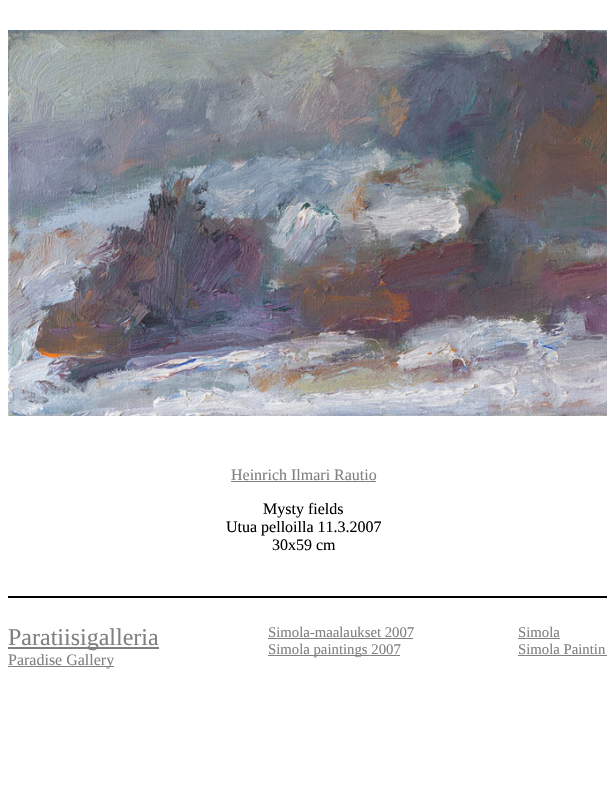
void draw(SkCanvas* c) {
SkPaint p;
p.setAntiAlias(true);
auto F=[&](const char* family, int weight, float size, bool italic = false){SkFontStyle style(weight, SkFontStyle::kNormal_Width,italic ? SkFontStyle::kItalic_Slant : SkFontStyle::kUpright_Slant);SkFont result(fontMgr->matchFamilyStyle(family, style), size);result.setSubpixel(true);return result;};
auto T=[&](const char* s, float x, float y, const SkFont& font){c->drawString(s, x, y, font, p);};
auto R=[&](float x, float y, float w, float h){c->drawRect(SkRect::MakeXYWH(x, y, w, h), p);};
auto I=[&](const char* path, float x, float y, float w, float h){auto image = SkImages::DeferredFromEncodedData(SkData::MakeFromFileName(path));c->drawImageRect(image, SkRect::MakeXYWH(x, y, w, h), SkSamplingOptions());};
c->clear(0xffffffff);
I("1.png",8,30,599,386);
auto f1 = F("Liberation Serif",400,16);
p.setColor(0xff808080);
T("Heinrich Ilmari Rautio",231,480,f1);
R(231,481,145,1);
p.setColor(0xff000000);
T("Mysty fields",263,514,f1);
T("Utua pelloilla 11.3.2007",226,532,f1);
T("30x59 cm",272,550,f1);
R(8,596,599,2);
p.setColor(0xff808080);
R(8,647,151,2);
auto f2 = F("Liberation Serif",400,24);
T("Paratiisigalleria",8,645,f2);
R(8,666,106,1);
T("Paradise Gallery",8,665,f1);
auto f3 = F("Liberation Serif",400,14.75);
T("Simola-maalaukset 2007",268,637,f3);
R(268,638,145,1);
R(268,655,132,1);
T("Simola paintings 2007",268,654,f3);
T("Simola",518,637,f3);
R(518,638,42,1);
T("Simola Paintin",518,654,f3);
R(518,655,89,1);
}
